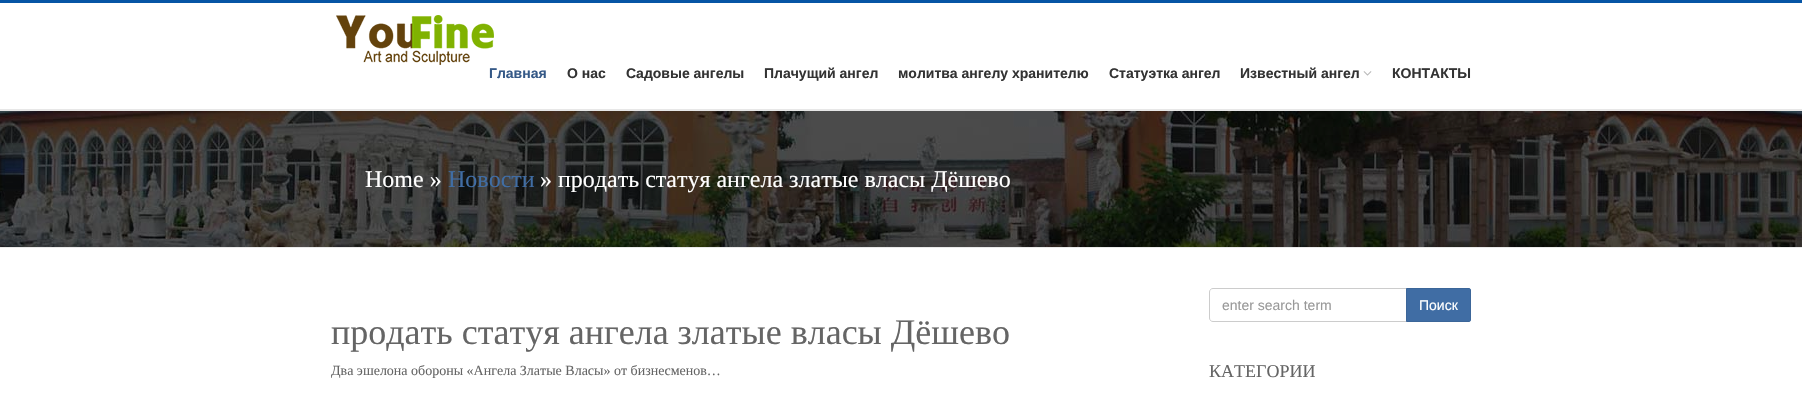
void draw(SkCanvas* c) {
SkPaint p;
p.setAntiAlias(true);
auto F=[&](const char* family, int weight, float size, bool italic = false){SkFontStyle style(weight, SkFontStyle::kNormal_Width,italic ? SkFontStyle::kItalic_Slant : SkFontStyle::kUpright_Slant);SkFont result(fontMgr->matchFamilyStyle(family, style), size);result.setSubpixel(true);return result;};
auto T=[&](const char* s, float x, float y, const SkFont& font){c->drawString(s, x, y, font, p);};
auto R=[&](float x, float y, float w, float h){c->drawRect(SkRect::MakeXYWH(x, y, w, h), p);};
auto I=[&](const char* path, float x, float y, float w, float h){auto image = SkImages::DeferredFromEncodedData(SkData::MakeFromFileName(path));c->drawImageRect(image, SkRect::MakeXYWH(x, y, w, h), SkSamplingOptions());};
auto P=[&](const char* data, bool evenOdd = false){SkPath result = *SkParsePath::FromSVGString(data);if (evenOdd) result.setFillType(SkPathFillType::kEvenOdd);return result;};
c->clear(0xffffffff);
p.setColor(0xff0655a5);
R(0,0,1802,3);
p.setColor(0xffe7e7e7);
R(0,109,1802,2);
I("1.png",336,15,158,50);
auto f1 = F("Liberation Sans",700,14);
p.setColor(0xff355987);
T("Главная",489,78,f1);
p.setColor(0xff333333);
T("О нас",567,78,f1);
T("Садовые ангелы",626,78,f1);
T("Плачущий ангел",764,78,f1);
T("молитва ангелу хранителю",898,78,f1);
T("Статуэтка ангел",1109,78,f1);
T("Известный ангел",1240,78,f1);
I("2.png",1363,71,9,5);
T("КОНТАКТЫ",1392,78,f1);
I("3.png",0,111,1802,136);
p.setColor(0xffeaeaea);
R(0,247,1802,1);
auto f2 = F("Liberation Serif",400,24);
p.setColor(0xffffffff);
T("Home »",365,187,f2);
p.setColor(0xff406da4);
T("Новости",448,187,f2);
p.setColor(0xffffffff);
T("» продать статуя ангела златые власы Дёшево",540,187,f2);
auto f3 = F("Liberation Serif",400,36);
p.setColor(0xff656565);
T("продать статуя ангела златые власы Дёшево",331,344,f3);
auto f4 = F("Liberation Serif",400,14);
T("Два эшелона обороны «Ангела Златые Власы» от бизнесменов…",331,375,f4);
p.setStroke(true);
p.setStrokeWidth(1);
p.setColor(0xffcccccc);
c->drawPath(P("M1213 288.5h193.5v33h-193.5c-2 0-3.5-1.5-3.5-3.5v-26c0-2 1.5-3.5 3.5-3.5z"),p);
auto f5 = F("Liberation Sans",400,14);
p.setStroke(false);
p.setColor(0xff999999);
T("enter search term",1222,310,f5);
p.setColor(0xff406da4);
c->drawPath(P("M1406.5 288.5h62.5c1 0 1.5 .5 1.5 1.5v30c0 1-.5 1.5-1.5 1.5h-62.5z"),p);
p.setStroke(true);
p.setColor(0xff3c6699);
c->drawPath(P("M1406.5 288.5h62.5c1 0 1.5 .5 1.5 1.5v30c0 1-.5 1.5-1.5 1.5h-62.5z"),p);
p.setStroke(false);
p.setColor(0xffffffff);
T("Поиск",1419,310,f5);
auto f6 = F("Liberation Serif",400,18);
p.setColor(0xff656565);
T("КАТЕГОРИИ",1209,377,f6);
}
